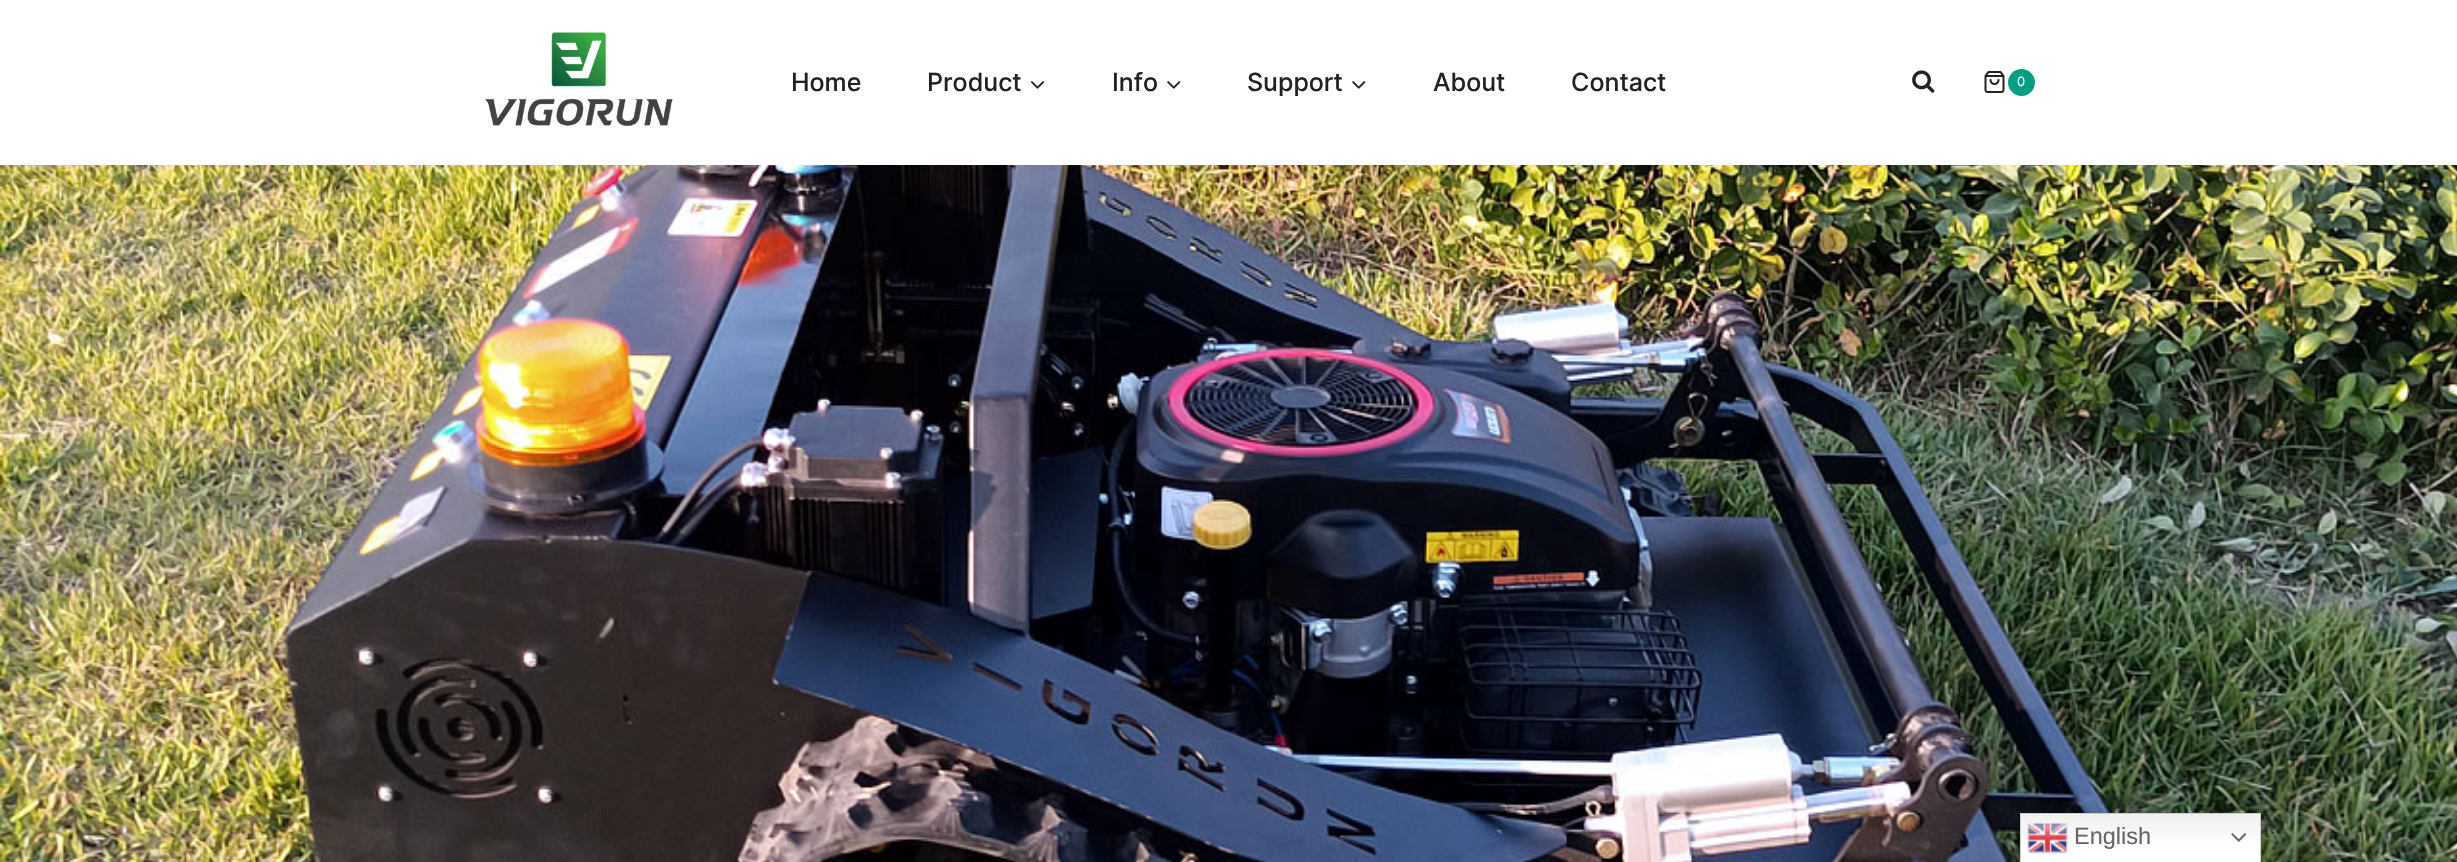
void draw(SkCanvas* c) {
SkPaint p;
p.setAntiAlias(true);
auto F=[&](const char* family, int weight, float size, bool italic = false){SkFontStyle style(weight, SkFontStyle::kNormal_Width,italic ? SkFontStyle::kItalic_Slant : SkFontStyle::kUpright_Slant);SkFont result(fontMgr->matchFamilyStyle(family, style), size);result.setSubpixel(true);return result;};
auto T=[&](const char* s, float x, float y, const SkFont& font){c->drawString(s, x, y, font, p);};
auto R=[&](float x, float y, float w, float h){c->drawRect(SkRect::MakeXYWH(x, y, w, h), p);};
auto I=[&](const char* path, float x, float y, float w, float h){auto image = SkImages::DeferredFromEncodedData(SkData::MakeFromFileName(path));c->drawImageRect(image, SkRect::MakeXYWH(x, y, w, h), SkSamplingOptions());};
c->clear(0xffffffff);
I("1.png",485,32,188,94);
auto f1 = F("Inter",500,25);
p.setColor(0xff222222);
T("Home",791,91,f1);
T("Product",927,91,f1);
I("2.png",1031,81,13,8);
T("Info",1112,91,f1);
I("3.png",1167,81,14,8);
T("Support",1247,91,f1);
I("3.png",1352,81,14,8);
T("About",1433,91,f1);
T("Contact",1571,91,f1);
I("4.png",1912,70,23,23);
I("5.png",1984,71,21,22);
p.setColor(0xff049f82);
c->drawCircle(2021.5,82.5,13.5,p);
auto f2 = F("Inter",400,13);
p.setColor(0xffffffff);
T("0",2017,86,f2);
I("6.png",0,165,2457,697);
{
const SkColor colors[] = {0xffefefef,0xffffffff};
const float stops[] = {0,.7};
const SkPoint ends[] = {{2141,813}, {2141,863}};
p.setShader(SkGradientShader::MakeLinear(ends, colors, stops, 2, SkTileMode::kClamp));
p.setAlpha(255);
}
R(2021,814,239,48);
p.setStroke(true);
p.setStrokeWidth(1);
p.setShader(nullptr);
p.setColor(0xffcccccc);
c->drawRect(SkRect::MakeXYWH(2020.5,813.5,240,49),p);
I("7.png",2027,823,41,31);
auto f3 = F("Liberation Sans",400,23.5);
p.setStroke(false);
p.setColor(0xff666666);
T("English",2074,844,f3);
I("8.png",2231,833,15,9);
}
